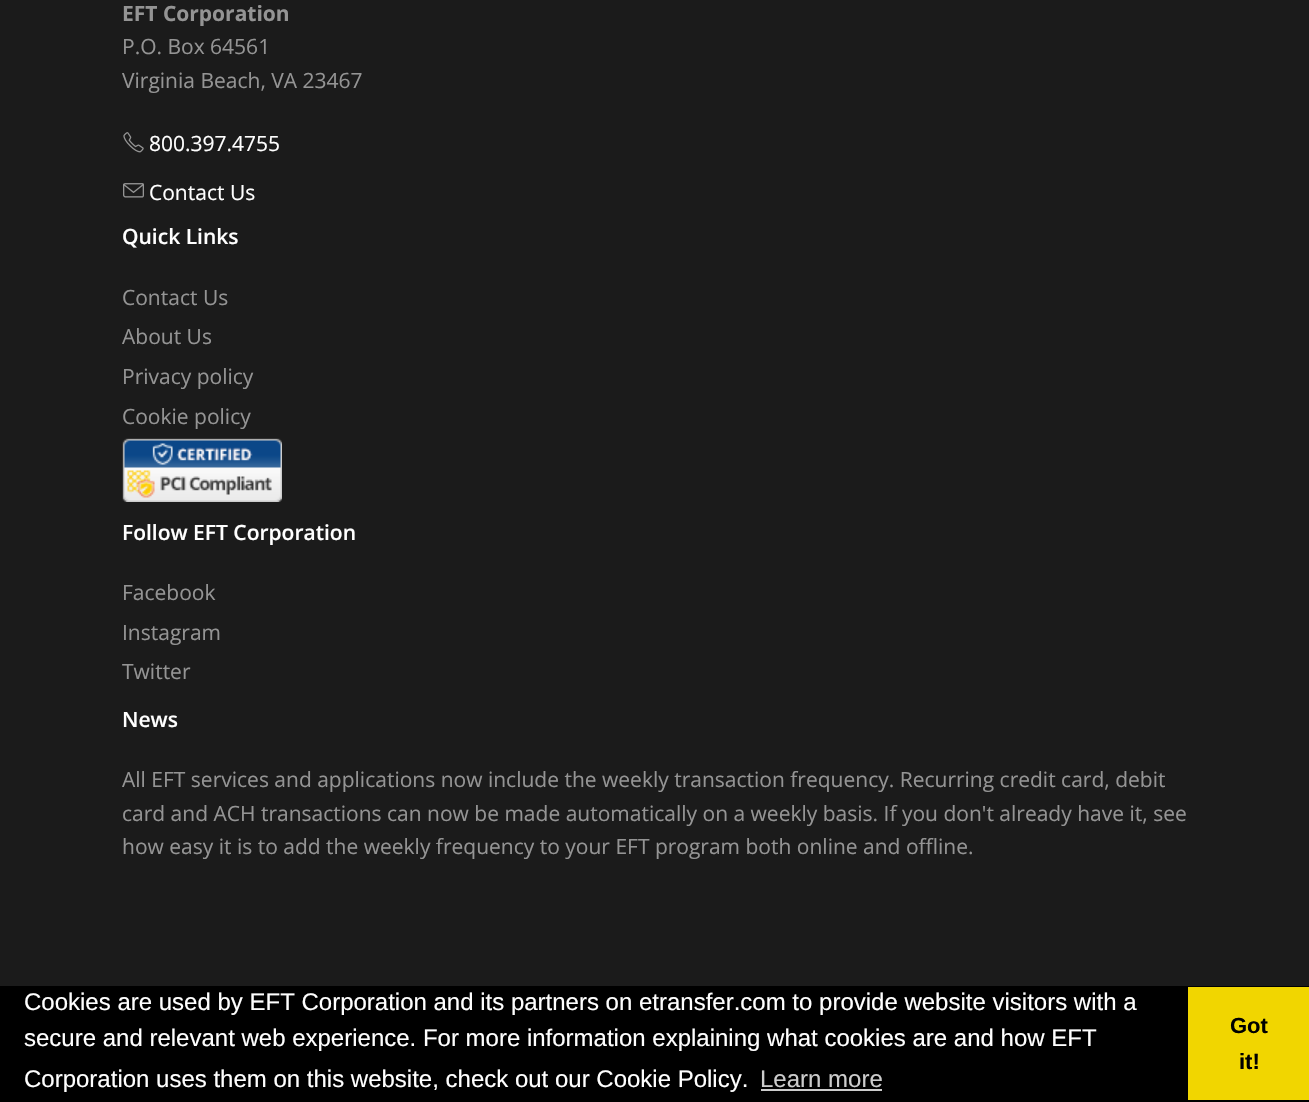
void draw(SkCanvas* c) {
SkPaint p;
p.setAntiAlias(true);
auto F=[&](const char* family, int weight, float size, bool italic = false){SkFontStyle style(weight, SkFontStyle::kNormal_Width,italic ? SkFontStyle::kItalic_Slant : SkFontStyle::kUpright_Slant);SkFont result(fontMgr->matchFamilyStyle(family, style), size);result.setSubpixel(true);return result;};
auto T=[&](const char* s, float x, float y, const SkFont& font){c->drawString(s, x, y, font, p);};
auto R=[&](float x, float y, float w, float h){c->drawRect(SkRect::MakeXYWH(x, y, w, h), p);};
auto I=[&](const char* path, float x, float y, float w, float h){auto image = SkImages::DeferredFromEncodedData(SkData::MakeFromFileName(path));c->drawImageRect(image, SkRect::MakeXYWH(x, y, w, h), SkSamplingOptions());};
c->clear(0xff1b1b1b);
auto f1 = F("Open Sans",700,21);
p.setColor(0xff949494);
T("EFT Corporation",122,21,f1);
auto f2 = F("Open Sans",400,21);
T("P.O. Box 64561",122,54,f2);
T("Virginia Beach, VA 23467",122,88,f2);
I("1.png",123,132,21,21);
p.setColor(0xffffffff);
T("800.397.4755",149,151,f2);
I("2.png",123,183,21,15);
T("Contact Us",149,200,f2);
auto f3 = F("Open Sans",600,21);
T("Quick Links",122,244,f3);
p.setColor(0xff949494);
T("Contact Us",122,305,f2);
T("About Us",122,344,f2);
T("Privacy policy",122,384,f2);
T("Cookie policy",122,424,f2);
I("3.png",122,438,160,64);
p.setColor(0xffffffff);
T("Follow EFT Corporation",122,540,f3);
p.setColor(0xff949494);
T("Facebook",122,600,f2);
T("Instagram",122,640,f2);
T("Twitter",122,679,f2);
p.setColor(0xffffffff);
T("News",122,727,f3);
p.setColor(0xff949494);
T("All EFT services and applications now include the weekly transaction frequency. Recurring credit card, debit",122,787,f2);
T("card and ACH transactions can now be made automatically on a weekly basis. If you don't already have it, see",122,821,f2);
T("how easy it is to add the weekly frequency to your EFT program both online and offline.",122,854,f2);
p.setColor(0xff000000);
R(0,986,1309,116);
auto f4 = F("Liberation Sans",400,24);
p.setColor(0xffffffff);
T("Cookies are used by EFT Corporation and its partners on etransfer.com to provide website visitors with a",24,1010,f4);
T("secure and relevant web experience. For more information explaining what cookies are and how EFT",24,1046,f4);
T("Corporation uses them on this website, check out our Cookie Policy.",24,1087,f4);
p.setColor(0xffcccccc);
T("Learn more",760,1087,f4);
R(761,1089,121,2);
p.setColor(0xfff1d600);
R(1188,987,121,113);
auto f5 = F("Liberation Sans",700,22);
p.setColor(0xff000000);
T("Got",1230,1033,f5);
T("it!",1239,1069,f5);
}
